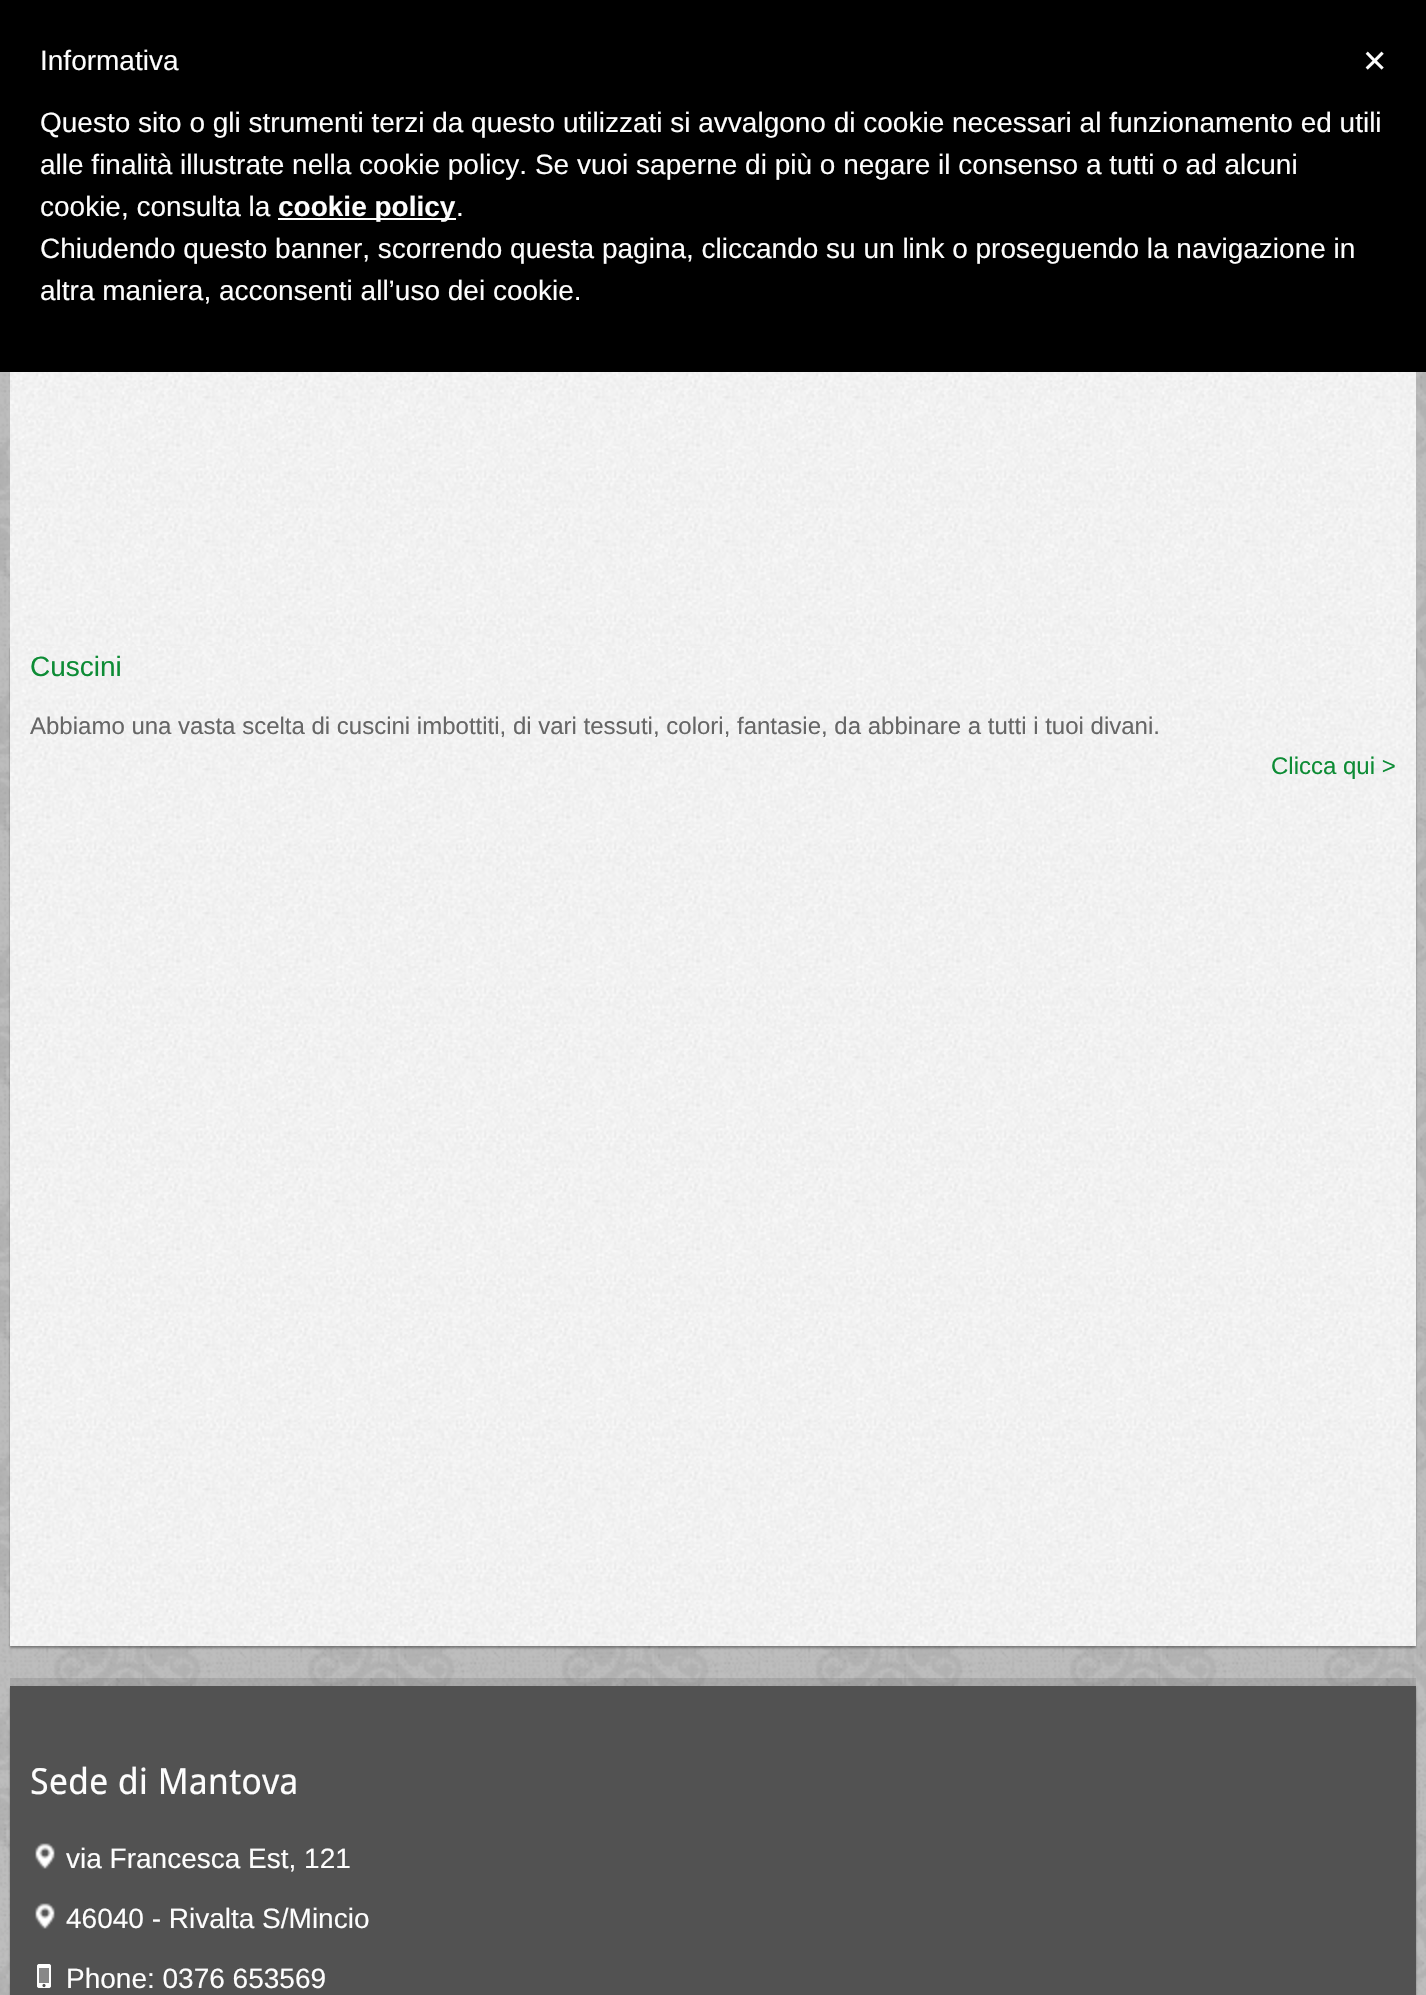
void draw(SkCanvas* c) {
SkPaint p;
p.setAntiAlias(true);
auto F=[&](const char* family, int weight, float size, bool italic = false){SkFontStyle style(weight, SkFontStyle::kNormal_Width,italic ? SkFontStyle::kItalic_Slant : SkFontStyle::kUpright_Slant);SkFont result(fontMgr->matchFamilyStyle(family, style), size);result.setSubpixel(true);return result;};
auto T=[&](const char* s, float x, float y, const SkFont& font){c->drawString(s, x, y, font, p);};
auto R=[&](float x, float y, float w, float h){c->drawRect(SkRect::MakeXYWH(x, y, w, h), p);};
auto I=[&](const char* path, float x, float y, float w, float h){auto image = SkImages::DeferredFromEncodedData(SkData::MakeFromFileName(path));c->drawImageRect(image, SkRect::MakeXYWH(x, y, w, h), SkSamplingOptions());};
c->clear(0xffffffff);
I("1.png",0,372,1426,1623);
p.setColor(0xff000000);
R(0,0,1426,372);
auto f1 = F("Liberation Sans",400,28);
p.setColor(0xfffdfdfd);
T("Informativa",40,70,f1);
T("Questo sito o gli strumenti terzi da questo utilizzati si avvalgono di cookie necessari al funzionamento ed utili",40,132,f1);
T("alle finalità illustrate nella cookie policy. Se vuoi saperne di più o negare il consenso a tutti o ad alcuni",40,174,f1);
T("cookie, consulta la",40,216,f1);
p.setColor(0xffffffff);
R(278,218,178,2);
auto f2 = F("Liberation Sans",700,28);
p.setColor(0xfffdfdfd);
T("cookie policy",278,216,f2);
T(".",456,216,f1);
T("Chiudendo questo banner, scorrendo questa pagina, cliccando su un link o proseguendo la navigazione in",40,258,f1);
T("altra maniera, acconsenti all’uso dei cookie.",40,300,f1);
auto f3 = F("Liberation Sans",400,40);
T("×",1363,74,f3);
p.setColor(0x59000000);
p.setMaskFilter(SkMaskFilter::MakeBlur(kNormal_SkBlurStyle, 1));
c->drawRect(SkRect::MakeXYWH(10,648,1406,1000),p);
p.setMaskFilter(nullptr);
I("2.png",10,372,1406,274);
I("3.png",10,646,1406,1000);
p.setColor(0xff0d8c35);
T("Cuscini",30,676,f1);
auto f4 = F("Liberation Sans",400,24);
p.setColor(0xff666666);
T("Abbiamo una vasta scelta di cuscini imbottiti, di vari tessuti, colori, fantasie, da abbinare a tutti i tuoi divani.",30,734,f4);
p.setColor(0xff0d8c35);
T("Clicca qui >",1271,774,f4);
p.setColor(0x59000000);
p.setMaskFilter(SkMaskFilter::MakeBlur(kNormal_SkBlurStyle, 1));
c->drawRect(SkRect::MakeXYWH(10,1688,1406,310),p);
p.setMaskFilter(nullptr);
p.setColor(0x1a000000);
R(10,1678,1406,8);
p.setColor(0xff525252);
R(10,1686,1406,309);
auto f5 = F("Droid Sans",400,36);
p.setColor(0xfffdfdfd);
T("Sede di Mantova",30,1794,f5);
I("4.png",35,1843,20,26);
T("via Francesca Est, 121",66,1868,f1);
I("4.png",35,1903,20,26);
T("46040 - Rivalta S/Mincio",66,1928,f1);
I("5.png",37,1964,14,24);
T("Phone: 0376 653569",66,1988,f1);
}
